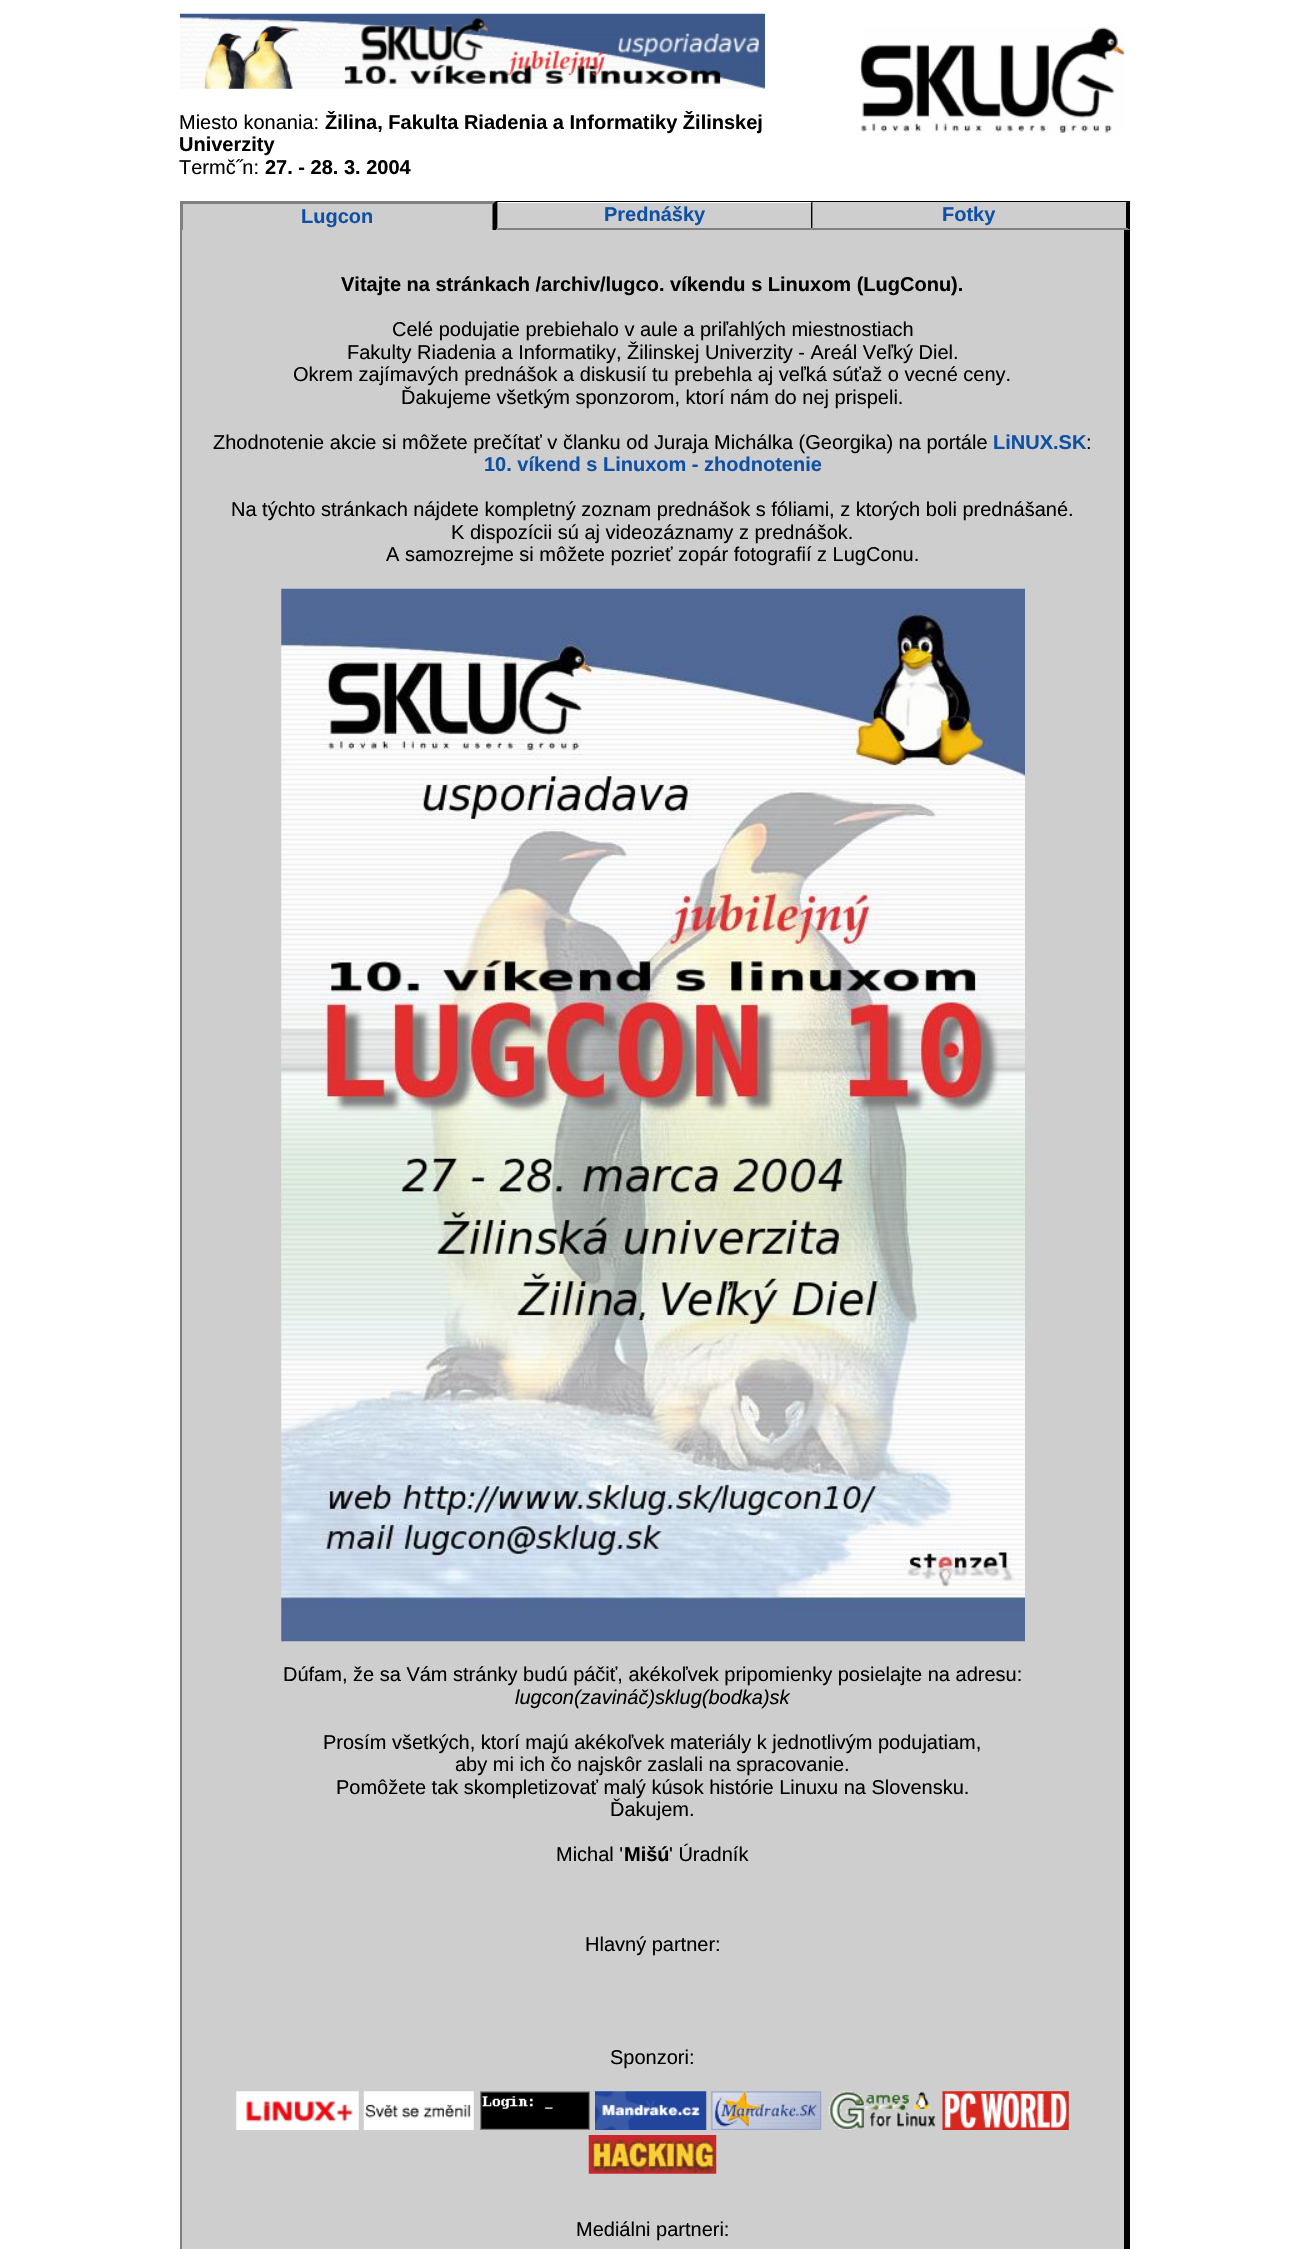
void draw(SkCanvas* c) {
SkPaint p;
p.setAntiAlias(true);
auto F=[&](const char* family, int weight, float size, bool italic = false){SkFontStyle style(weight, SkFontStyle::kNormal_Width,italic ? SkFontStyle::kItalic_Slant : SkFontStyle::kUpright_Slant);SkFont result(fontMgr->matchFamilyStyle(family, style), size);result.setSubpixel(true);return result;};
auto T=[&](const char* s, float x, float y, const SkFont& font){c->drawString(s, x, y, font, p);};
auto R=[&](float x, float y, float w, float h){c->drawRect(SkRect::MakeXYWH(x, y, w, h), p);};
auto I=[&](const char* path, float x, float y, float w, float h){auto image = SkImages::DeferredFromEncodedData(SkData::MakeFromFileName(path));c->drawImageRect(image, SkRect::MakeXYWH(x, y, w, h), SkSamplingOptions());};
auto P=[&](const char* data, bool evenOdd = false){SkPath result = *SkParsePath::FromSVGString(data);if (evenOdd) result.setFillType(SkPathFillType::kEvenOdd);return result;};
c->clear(0xffffffff);
I("1.png",180,13,585,76);
I("2.png",860,27,265,108);
auto f1 = F("Liberation Sans",400,20);
p.setColor(0xff000000);
T("Miesto konania:",179,129,f1);
auto f2 = F("Liberation Sans",700,20);
T("Žilina, Fakulta Riadenia a Informatiky Žilinskej",325,129,f2);
T("Univerzity",179,151,f2);
T("Termč˝n:",179,174,f1);
T("27. - 28. 3. 2004",265,174,f2);
p.setColor(0xffcdcecd);
R(183,201,313,29);
p.setColor(0xff808080);
c->drawPath(P("M180 201h316l-4 3h-310z"),p);
p.setColor(0xff000000);
c->drawPath(P("M496 201v29h-3.5v-26z"),p);
p.setColor(0xff808080);
R(180,201,3,29);
p.setColor(0xff1050a4);
T("Lugcon",301,223,f2);
p.setColor(0xffcdcecd);
R(498,203,313,25);
p.setColor(0xff000000);
R(496,201,634,1);
c->drawPath(P("M812.5 201v29l-1.5-2.5v-25z"),p);
p.setColor(0xff808080);
c->drawPath(P("M812 230h-316l2-2h313z"),p);
p.setColor(0xff000000);
c->drawPath(P("M496 230v-29l1.5 1.5v25z"),p);
p.setColor(0xff1050a4);
T("Prednášky",604,221,f2);
p.setColor(0xffcdcecd);
R(813,202,317,28);
p.setColor(0xff000000);
c->drawPath(P("M1130 201v29l-4-2.5v-25z"),p);
p.setColor(0xff808080);
c->drawPath(P("M1130 230h-318v-2h314z"),p);
p.setColor(0xff1050a4);
T("Fotky",942,221,f2);
p.setColor(0xffcdcecd);
R(182,230,942,2019);
p.setColor(0xff000000);
R(1124,230,6,2019);
p.setColor(0xff808080);
c->drawPath(P("M180 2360v-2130h2v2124z"),p);
p.setColor(0xff000000);
T("Vitajte na stránkach /archiv/lugco. víkendu s Linuxom (LugConu).",341,291,f2);
T("Celé podujatie prebiehalo v aule a priľahlých miestnostiach",392,336,f1);
T("Fakulty Riadenia a Informatiky, Žilinskej Univerzity - Areál Veľký Diel.",347,359,f1);
T("Okrem zajímavých prednášok a diskusií tu prebehla aj veľká súťaž o vecné ceny.",293,381,f1);
T("Ďakujeme všetkým sponzorom, ktorí nám do nej prispeli.",401,404,f1);
T("Zhodnotenie akcie si môžete prečítať v članku od Juraja Michálka (Georgika) na portále",213,449,f1);
p.setColor(0xff1050a4);
T("LiNUX.SK",993,449,f2);
p.setColor(0xff000000);
T(":",1086,449,f1);
p.setColor(0xff1050a4);
T("10. víkend s Linuxom - zhodnotenie",484,471,f2);
p.setColor(0xff000000);
T("Na týchto stránkach nájdete kompletný zoznam prednášok s fóliami, z ktorých boli prednášané.",231,516,f1);
T("K dispozícii sú aj videozáznamy z prednášok.",451,539,f1);
T("A samozrejme si môžete pozrieť zopár fotografií z LugConu.",386,561,f1);
I("3.png",281,588,744,1054);
T("Dúfam, že sa Vám stránky budú páčiť, akékoľvek pripomienky posielajte na adresu:",283,1681,f1);
auto f3 = F("Liberation Sans",400,20,true);
T("lugcon(zavináč)sklug(bodka)sk",515,1704,f3);
T("Prosím všetkých, ktorí majú akékoľvek materiály k jednotlivým podujatiam,",323,1749,f1);
T("aby mi ich čo najskôr zaslali na spracovanie.",455,1771,f1);
T("Pomôžete tak skompletizovať malý kúsok histórie Linuxu na Slovensku.",336,1794,f1);
T("Ďakujem.",610,1816,f1);
T("Michal '",556,1861,f1);
T("Mišú",624,1861,f2);
T("' Úradník",669,1861,f1);
T("Hlavný partner:",585,1951,f1);
T("Sponzori:",610,2064,f1);
I("4.png",236,2091,123,39);
I("5.png",363,2091,111,39);
I("6.png",480,2091,110,39);
I("7.png",595,2091,112,39);
I("8.png",711,2091,111,39);
I("9.png",828,2091,108,39);
I("10.png",942,2091,127,39);
I("11.png",588,2135,129,39);
T("Mediálni partneri:",576,2236,f1);
}
